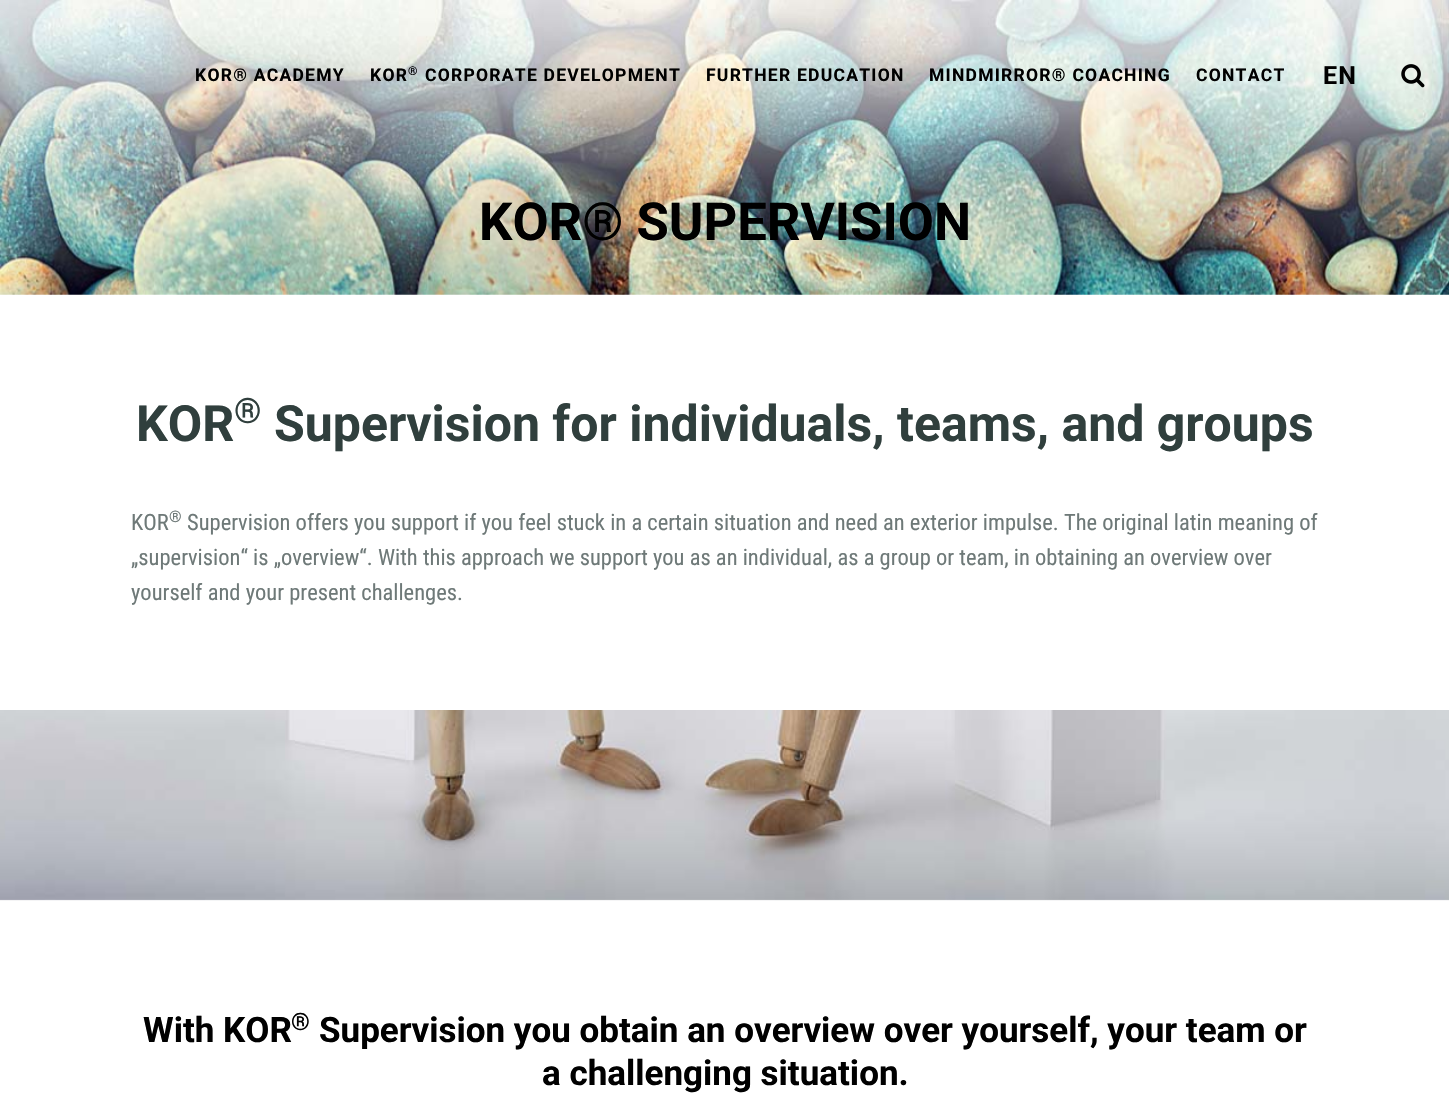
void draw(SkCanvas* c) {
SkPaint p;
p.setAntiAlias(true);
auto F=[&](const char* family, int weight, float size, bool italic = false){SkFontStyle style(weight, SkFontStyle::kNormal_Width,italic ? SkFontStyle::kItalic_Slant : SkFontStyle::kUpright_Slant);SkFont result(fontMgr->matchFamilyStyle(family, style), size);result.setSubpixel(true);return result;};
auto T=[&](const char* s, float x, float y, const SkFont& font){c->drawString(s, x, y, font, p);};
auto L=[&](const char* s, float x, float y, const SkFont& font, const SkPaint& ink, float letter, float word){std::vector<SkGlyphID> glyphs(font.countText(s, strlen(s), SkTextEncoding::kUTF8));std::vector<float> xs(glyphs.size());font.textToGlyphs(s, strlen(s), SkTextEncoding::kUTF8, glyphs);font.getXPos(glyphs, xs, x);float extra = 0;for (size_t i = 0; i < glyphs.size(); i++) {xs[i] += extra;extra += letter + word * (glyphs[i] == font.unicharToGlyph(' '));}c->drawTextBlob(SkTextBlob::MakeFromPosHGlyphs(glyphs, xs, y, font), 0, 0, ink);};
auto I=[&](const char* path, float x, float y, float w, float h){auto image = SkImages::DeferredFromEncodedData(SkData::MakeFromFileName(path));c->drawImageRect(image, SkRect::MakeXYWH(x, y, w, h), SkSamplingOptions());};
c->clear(0xffffffff);
I("2.png",0,0,1449,295);
auto f1 = F("Roboto",700,17.5);
p.setColor(0xff000000);
L("KOR® ACADEMY",195,81,f1,p,1.25,0);
L("KOR",370,81,f1,p,1.25,0);
auto f2 = F("Roboto",700,12);
L("®",408,75,f2,p,1.25,0);
L("CORPORATE DEVELOPMENT",425,81,f1,p,1.25,0);
L("FURTHER EDUCATION",706,81,f1,p,1.25,0);
L("MINDMIRROR® COACHING",929,81,f1,p,1.25,0);
L("CONTACT",1196,81,f1,p,1.25,0);
auto f3 = F("Roboto",700,25);
L("EN",1323,84,f3,p,1.25,0);
I("1.png",1401,64,24,24);
auto f4 = F("Roboto",700,52.5);
T("KOR® SUPERVISION",479,240,f4);
auto f5 = F("Roboto",700,50);
p.setColor(0xff303f3d);
T("KOR",136,441,f5);
auto f6 = F("Roboto",700,35);
T("®",234,423,f6);
T("Supervision for individuals, teams, and groups",274,441,f5);
auto f7 = F("Roboto Condensed",400,22.5);
p.setColor(0xff6e7978);
T("KOR",131,530,f7);
auto f8 = F("Roboto Condensed",400,16);
T("®",169,522,f8);
T("Supervision offers you support if you feel stuck in a certain situation and need an exterior impulse. The original latin meaning of",187,530,f7);
T("„supervision“ is „overview“. With this approach we support you as an individual, as a group or team, in obtaining an overview over",131,565,f7);
T("yourself and your present challenges.",131,600,f7);
I("3.png",0,710,1449,191);
p.setColor(0xff000000);
T("With KOR",143,1042,f6);
auto f9 = F("Roboto",700,24);
T("®",291,1030,f9);
T("Supervision you obtain an overview over yourself, your team or",319,1042,f6);
T("a challenging situation.",542,1085,f6);
}
